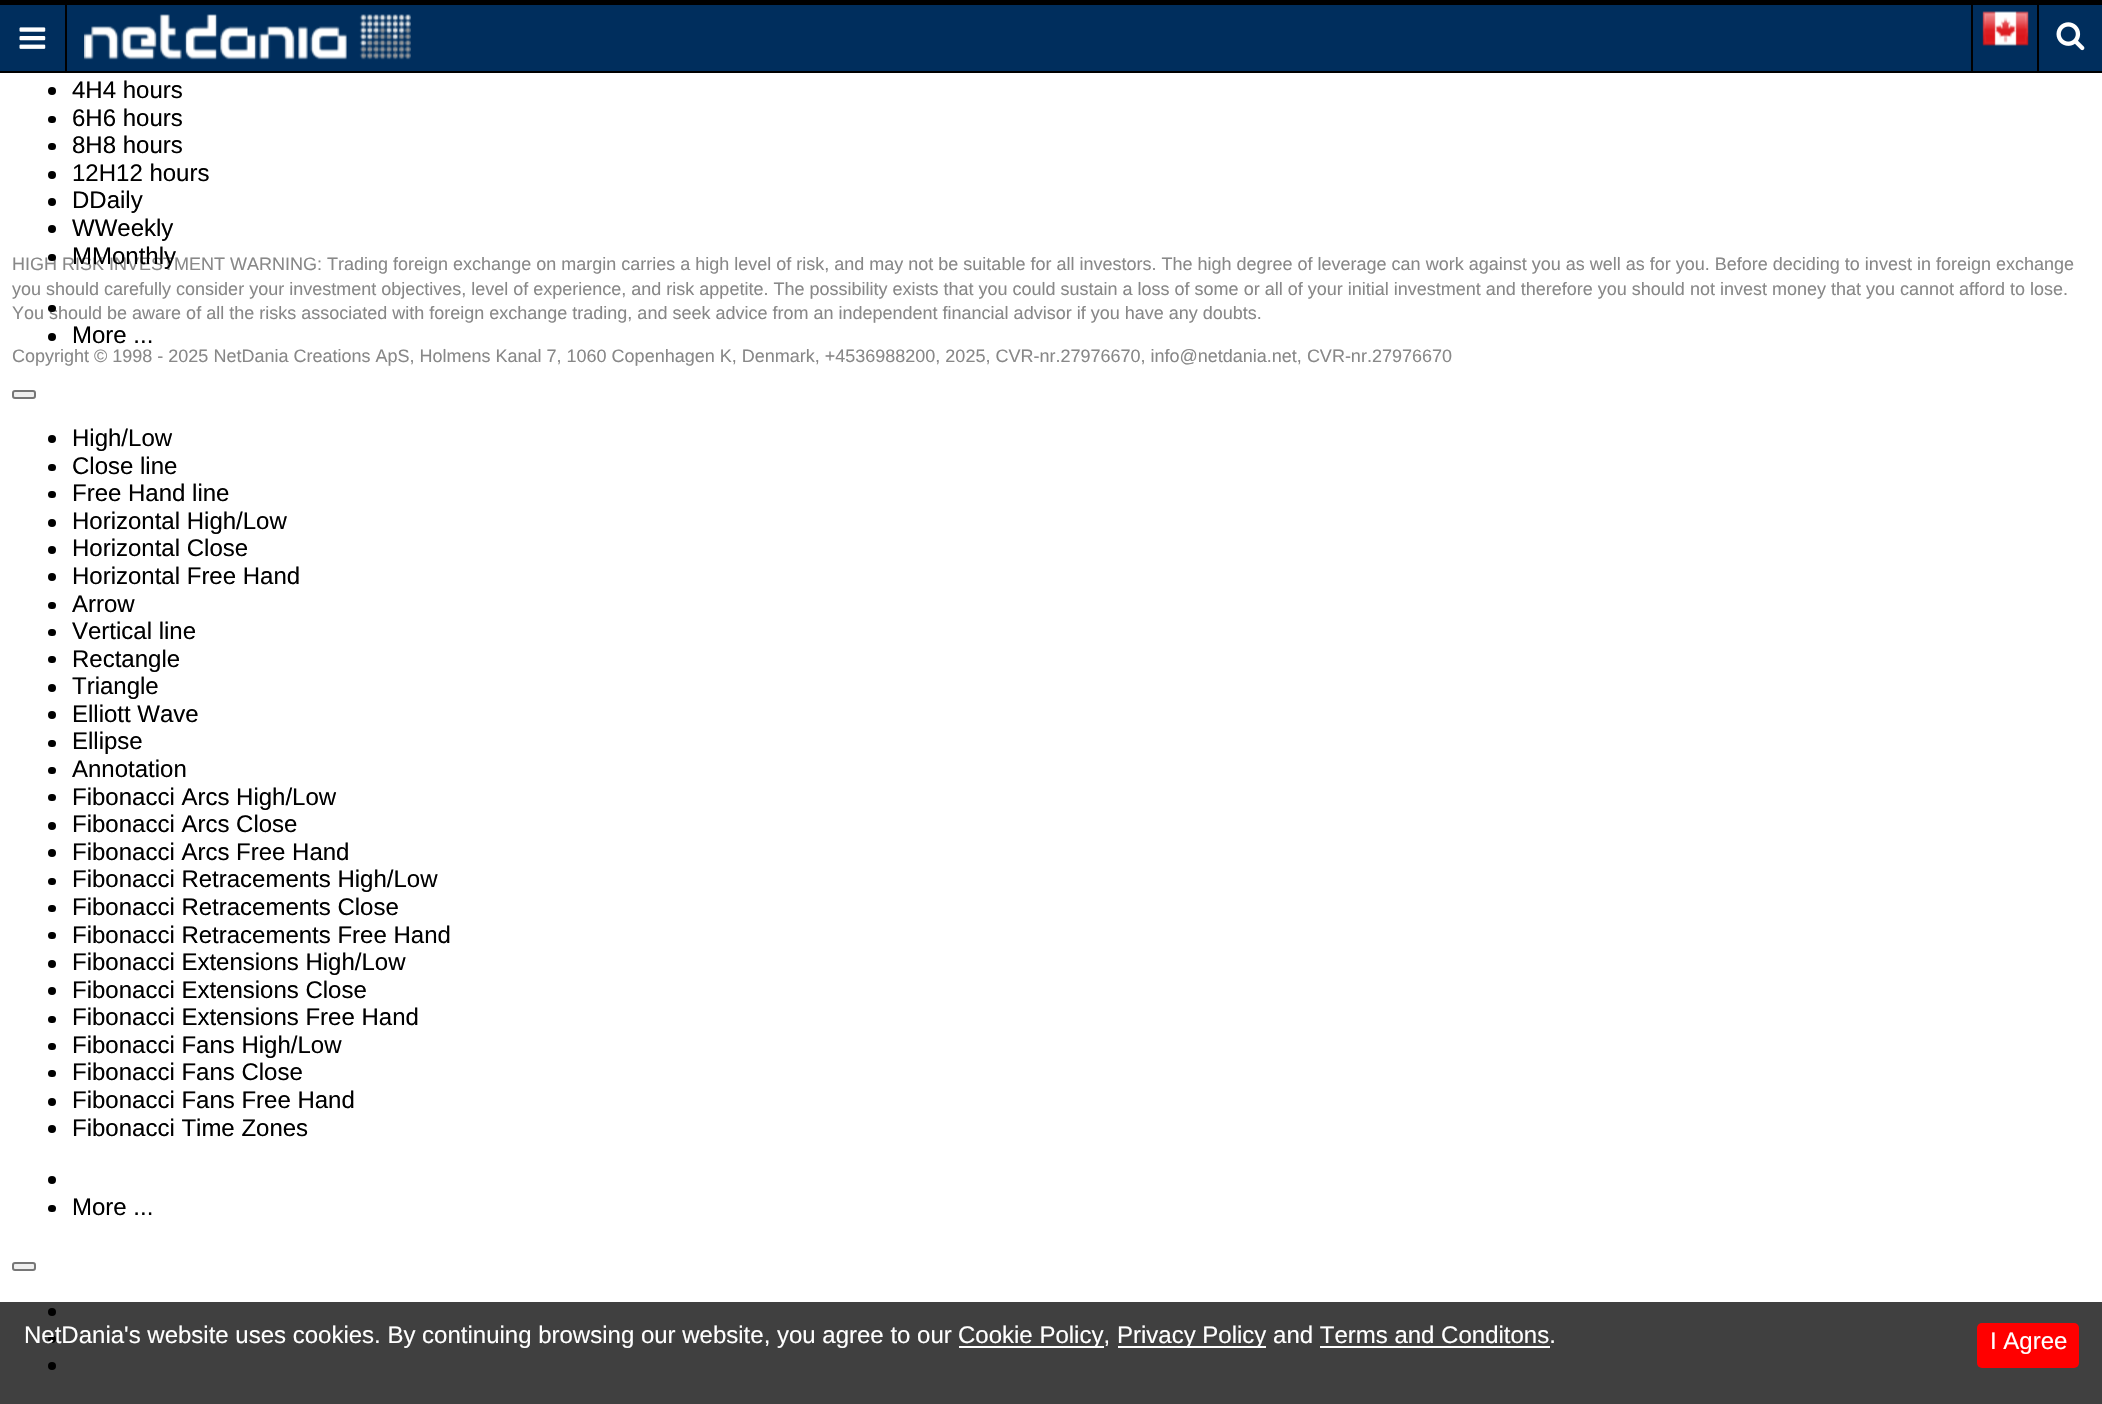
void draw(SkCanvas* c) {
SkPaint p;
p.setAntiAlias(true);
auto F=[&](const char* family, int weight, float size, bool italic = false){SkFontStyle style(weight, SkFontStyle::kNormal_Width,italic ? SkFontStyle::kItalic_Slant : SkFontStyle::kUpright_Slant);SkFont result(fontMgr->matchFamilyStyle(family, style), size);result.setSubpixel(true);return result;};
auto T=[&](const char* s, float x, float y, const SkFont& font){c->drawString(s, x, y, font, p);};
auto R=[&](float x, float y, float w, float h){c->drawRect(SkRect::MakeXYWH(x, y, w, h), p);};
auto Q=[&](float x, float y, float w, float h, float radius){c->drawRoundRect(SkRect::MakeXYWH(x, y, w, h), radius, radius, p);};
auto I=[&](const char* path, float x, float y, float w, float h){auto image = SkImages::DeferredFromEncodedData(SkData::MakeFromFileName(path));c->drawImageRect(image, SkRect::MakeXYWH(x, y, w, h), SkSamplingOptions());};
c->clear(0xffffffff);
p.setColor(0xff002e5d);
R(0,5,2102,66);
p.setColor(0xff000000);
R(0,0,2102,5);
R(0,71,2102,2);
R(65,5,2,66);
I("1.png",19,27,27,22);
I("2.png",84,14,327,46);
R(1971,5,2,66);
I("3.png",1982,11,47,35);
R(2037,5,2,66);
I("4.png",2056,22,29,29);
c->drawCircle(52,91,4,p);
auto f1 = F("Liberation Sans",400,24);
T("4H4 hours",72,98,f1);
Q(48,116,8,7,3.5);
T("6H6 hours",72,126,f1);
Q(48,143,8,7,3.5);
T("8H8 hours",72,153,f1);
c->drawCircle(52,175,4,p);
T("12H12 hours",72,181,f1);
c->drawCircle(52,202,4,p);
T("DDaily",72,208,f1);
c->drawCircle(52,229,4,p);
T("WWeekly",72,236,f1);
auto f2 = F("Liberation Sans",400,18);
p.setColor(0xff888888);
T("HIGH RISK INVESTMENT WARNING: Trading foreign exchange on margin carries a high level of risk, and may not be suitable for all investors. The high degree of leverage can work against you as well as for you. Before deciding to invest in foreign exchange",12,270,f2);
p.setColor(0xff000000);
Q(48,254,8,7,3.5);
T("MMonthly",72,264,f1);
p.setColor(0xff888888);
T("You should be aware of all the risks associated with foreign exchange trading, and seek advice from an independent financial advisor if you have any doubts.",12,319,f2);
p.setColor(0xff000000);
Q(48,305,8,7,3.5);
c->drawCircle(52,337,4,p);
T("More ...",72,343,f1);
p.setColor(0xffefefef);
c->drawRoundRect(SkRect::MakeXYWH(13,391,22,7),2,2,p);
p.setStroke(true);
p.setStrokeWidth(2);
p.setColor(0xff767676);
c->drawRoundRect(SkRect::MakeXYWH(13,391,22,7),2,2,p);
p.setStroke(false);
p.setColor(0xff000000);
c->drawCircle(52,439,4,p);
T("High/Low",72,446,f1);
Q(48,464,8,7,3.5);
T("Close line",72,474,f1);
Q(48,491,8,7,3.5);
T("Free Hand line",72,501,f1);
c->drawCircle(52,523,4,p);
T("Horizontal High/Low",72,529,f1);
c->drawCircle(52,550,4,p);
T("Horizontal Close",72,556,f1);
c->drawCircle(52,577,4,p);
T("Horizontal Free Hand",72,584,f1);
Q(48,602,8,7,3.5);
T("Arrow",72,612,f1);
Q(48,629,8,7,3.5);
T("Vertical line",72,639,f1);
Q(48,656,8,7,3.5);
T("Rectangle",72,667,f1);
c->drawCircle(52,688,4,p);
T("Triangle",72,694,f1);
c->drawCircle(52,715,4,p);
T("Elliott Wave",72,722,f1);
Q(48,740,8,7,3.5);
T("Ellipse",72,749,f1);
Q(48,767,8,7,3.5);
T("Annotation",72,777,f1);
Q(48,794,8,7,3.5);
T("Fibonacci Arcs High/Low",72,805,f1);
c->drawCircle(52,826,4,p);
T("Fibonacci Arcs Close",72,832,f1);
c->drawCircle(52,853,4,p);
T("Fibonacci Arcs Free Hand",72,860,f1);
Q(48,878,8,7,3.5);
T("Fibonacci Retracements High/Low",72,887,f1);
Q(48,905,8,7,3.5);
T("Fibonacci Retracements Close",72,915,f1);
Q(48,932,8,7,3.5);
T("Fibonacci Retracements Free Hand",72,943,f1);
c->drawCircle(52,964,4,p);
T("Fibonacci Extensions High/Low",72,970,f1);
c->drawCircle(52,991,4,p);
T("Fibonacci Extensions Close",72,998,f1);
Q(48,1016,8,7,3.5);
T("Fibonacci Extensions Free Hand",72,1025,f1);
Q(48,1043,8,7,3.5);
T("Fibonacci Fans High/Low",72,1053,f1);
Q(48,1070,8,7,3.5);
T("Fibonacci Fans Close",72,1080,f1);
c->drawCircle(52,1102,4,p);
T("Fibonacci Fans Free Hand",72,1108,f1);
c->drawCircle(52,1129,4,p);
T("Fibonacci Time Zones",72,1136,f1);
c->drawCircle(52,1180,4,p);
Q(48,1205,8,7,3.5);
T("More ...",72,1215,f1);
p.setColor(0xffefefef);
c->drawRoundRect(SkRect::MakeXYWH(13,1263,22,7),2,2,p);
p.setStroke(true);
p.setColor(0xff767676);
c->drawRoundRect(SkRect::MakeXYWH(13,1263,22,7),2,2,p);
p.setStroke(false);
p.setColor(0xff000000);
c->drawCircle(52,1312,4,p);
c->drawCircle(52,1339,4,p);
c->drawCircle(52,1366,4,p);
p.setColor(0xff888888);
T("you should carefully consider your investment objectives, level of experience, and risk appetite. The possibility exists that you could sustain a loss of some or all of your initial investment and therefore you should not invest money that you cannot afford to lose.",12,295,f2);
T("Copyright © 1998 - 2025 NetDania Creations ApS, Holmens Kanal 7, 1060 Copenhagen K, Denmark, +4536988200, 2025, CVR-nr.27976670, info@netdania.net, CVR-nr.27976670",12,362,f2);
p.setColor(0xbf000000);
R(0,1302,2102,102);
p.setColor(0xffffffff);
T("NetDania's website uses cookies. By continuing browsing our website, you agree to our",24,1343,f1);
R(959,1346,145,2);
T("Cookie Policy,",958,1343,f1);
R(1118,1346,148,2);
T("Privacy Policy and Terms and Conditons.",1117,1343,f1);
p.setColor(0xffff0000);
Q(1977,1323,102,45,5);
p.setColor(0xffffffff);
T("I Agree",1990,1349,f1);
R(1320,1346,230,2);
}
